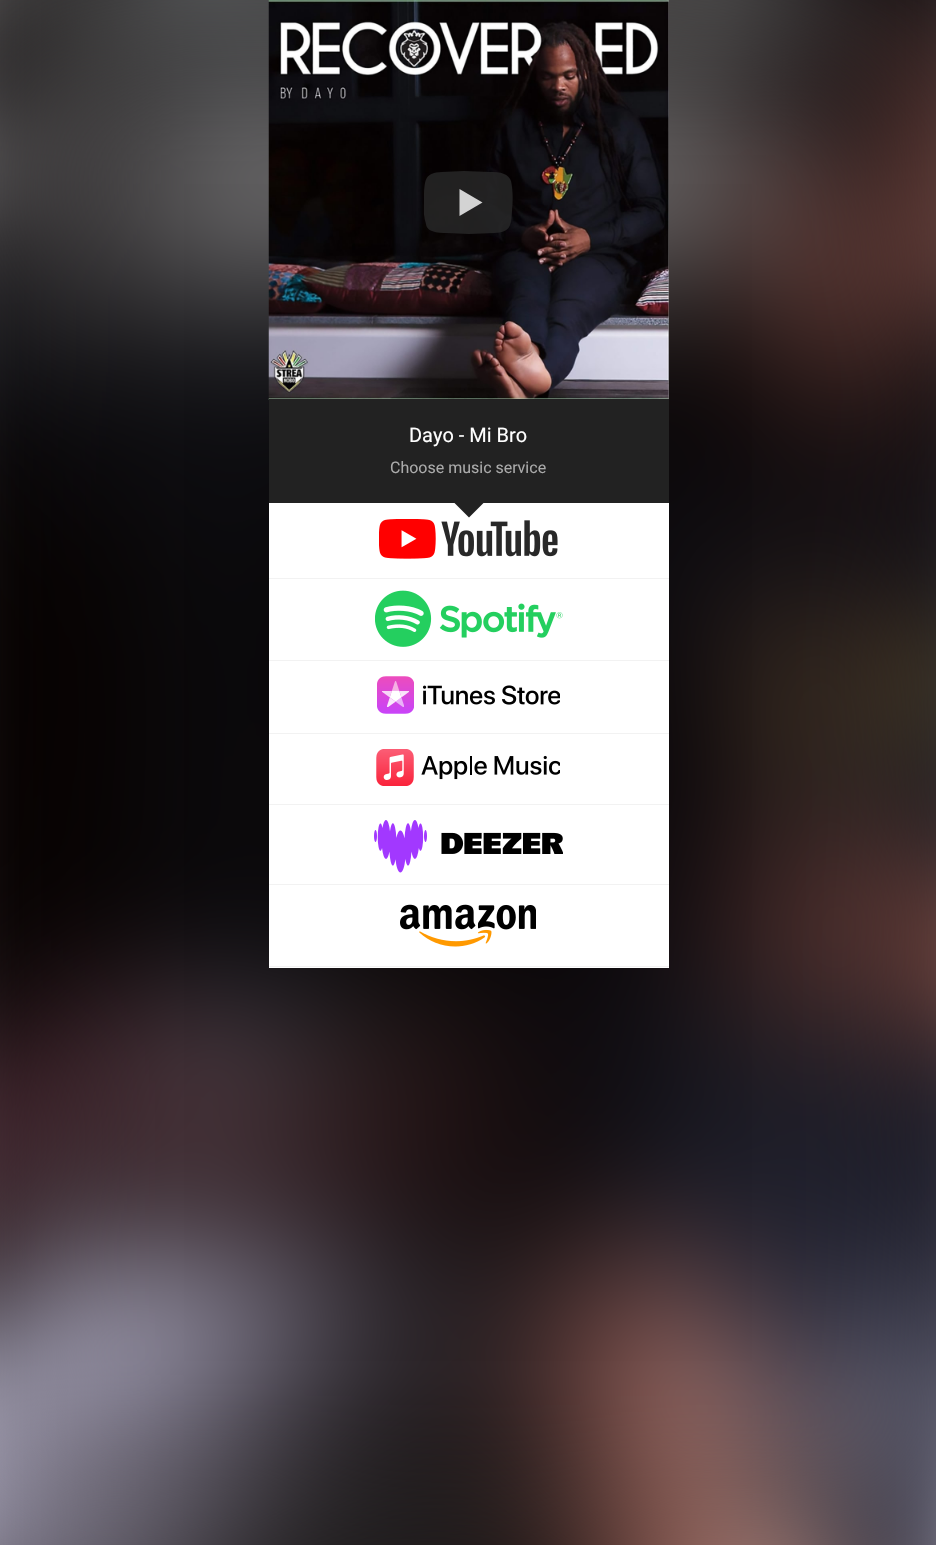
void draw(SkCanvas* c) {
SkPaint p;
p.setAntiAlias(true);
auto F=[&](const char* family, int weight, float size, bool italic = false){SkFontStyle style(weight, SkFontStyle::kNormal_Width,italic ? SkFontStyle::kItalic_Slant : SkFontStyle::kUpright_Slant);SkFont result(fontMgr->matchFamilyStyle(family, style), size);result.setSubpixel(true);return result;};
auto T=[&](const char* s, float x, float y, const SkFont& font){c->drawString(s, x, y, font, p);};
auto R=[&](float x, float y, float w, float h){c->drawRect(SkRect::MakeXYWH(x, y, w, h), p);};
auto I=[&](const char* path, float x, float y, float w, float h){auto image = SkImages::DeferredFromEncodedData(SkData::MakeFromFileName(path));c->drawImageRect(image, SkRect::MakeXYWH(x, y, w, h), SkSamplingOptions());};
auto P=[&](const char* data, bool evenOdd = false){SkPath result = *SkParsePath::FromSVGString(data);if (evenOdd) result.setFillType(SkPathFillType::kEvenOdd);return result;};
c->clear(0xffffffff);
I("1.png",0,0,936,1545);
I("2.png",0,0,936,1545);
p.setColor(0xffffffff);
R(269,0,400,968);
I("3.png",268,0,401,400);
c->save();
c->clipRect(SkRect::MakeXYWH(424,171,89,63));
p.setColor(0xcc282828);
c->drawPath(P("M511 181c-1-3-4-6-7-7c-4-2-10-2-15-2l-25-1l-22 1c-17 1-17 7-18 22c-1 10-1 20 2 30c0 3 3 6 6 7c5 2 11 2 15 2l22 1l25-1c17-1 17-7 18-22c1-10 1-21-1-30z"),p);
c->restore();
p.setColor(0xccffffff);
c->drawPath(P("M482.5 202.5l-23-13.5v27z"),p);
p.setColor(0xff222222);
R(269,399,400,104);
auto f1 = F("Roboto",400,20);
p.setColor(0xffffffff);
T("Dayo - Mi Bro",409,442,f1);
auto f2 = F("Roboto",400,16);
p.setColor(0xffaaaaaa);
T("Choose music service",390,473,f2);
p.setColor(0xff222222);
c->drawPath(P("M454 502.5h30l-15 15z"),p);
p.setColor(0xfff2f2f2);
R(269,578,400,1);
I("4.png",379,519,179,40);
R(269,660,400,1);
I("5.png",375,590,188,57);
R(269,733,400,1);
I("6.png",377,676,183,38);
R(269,804,400,1);
I("7.png",376,749,184,37);
R(269,884,400,1);
I("8.png",374,820,189,53);
R(269,966,400,1);
I("9.png",400,904,136,43);
}
